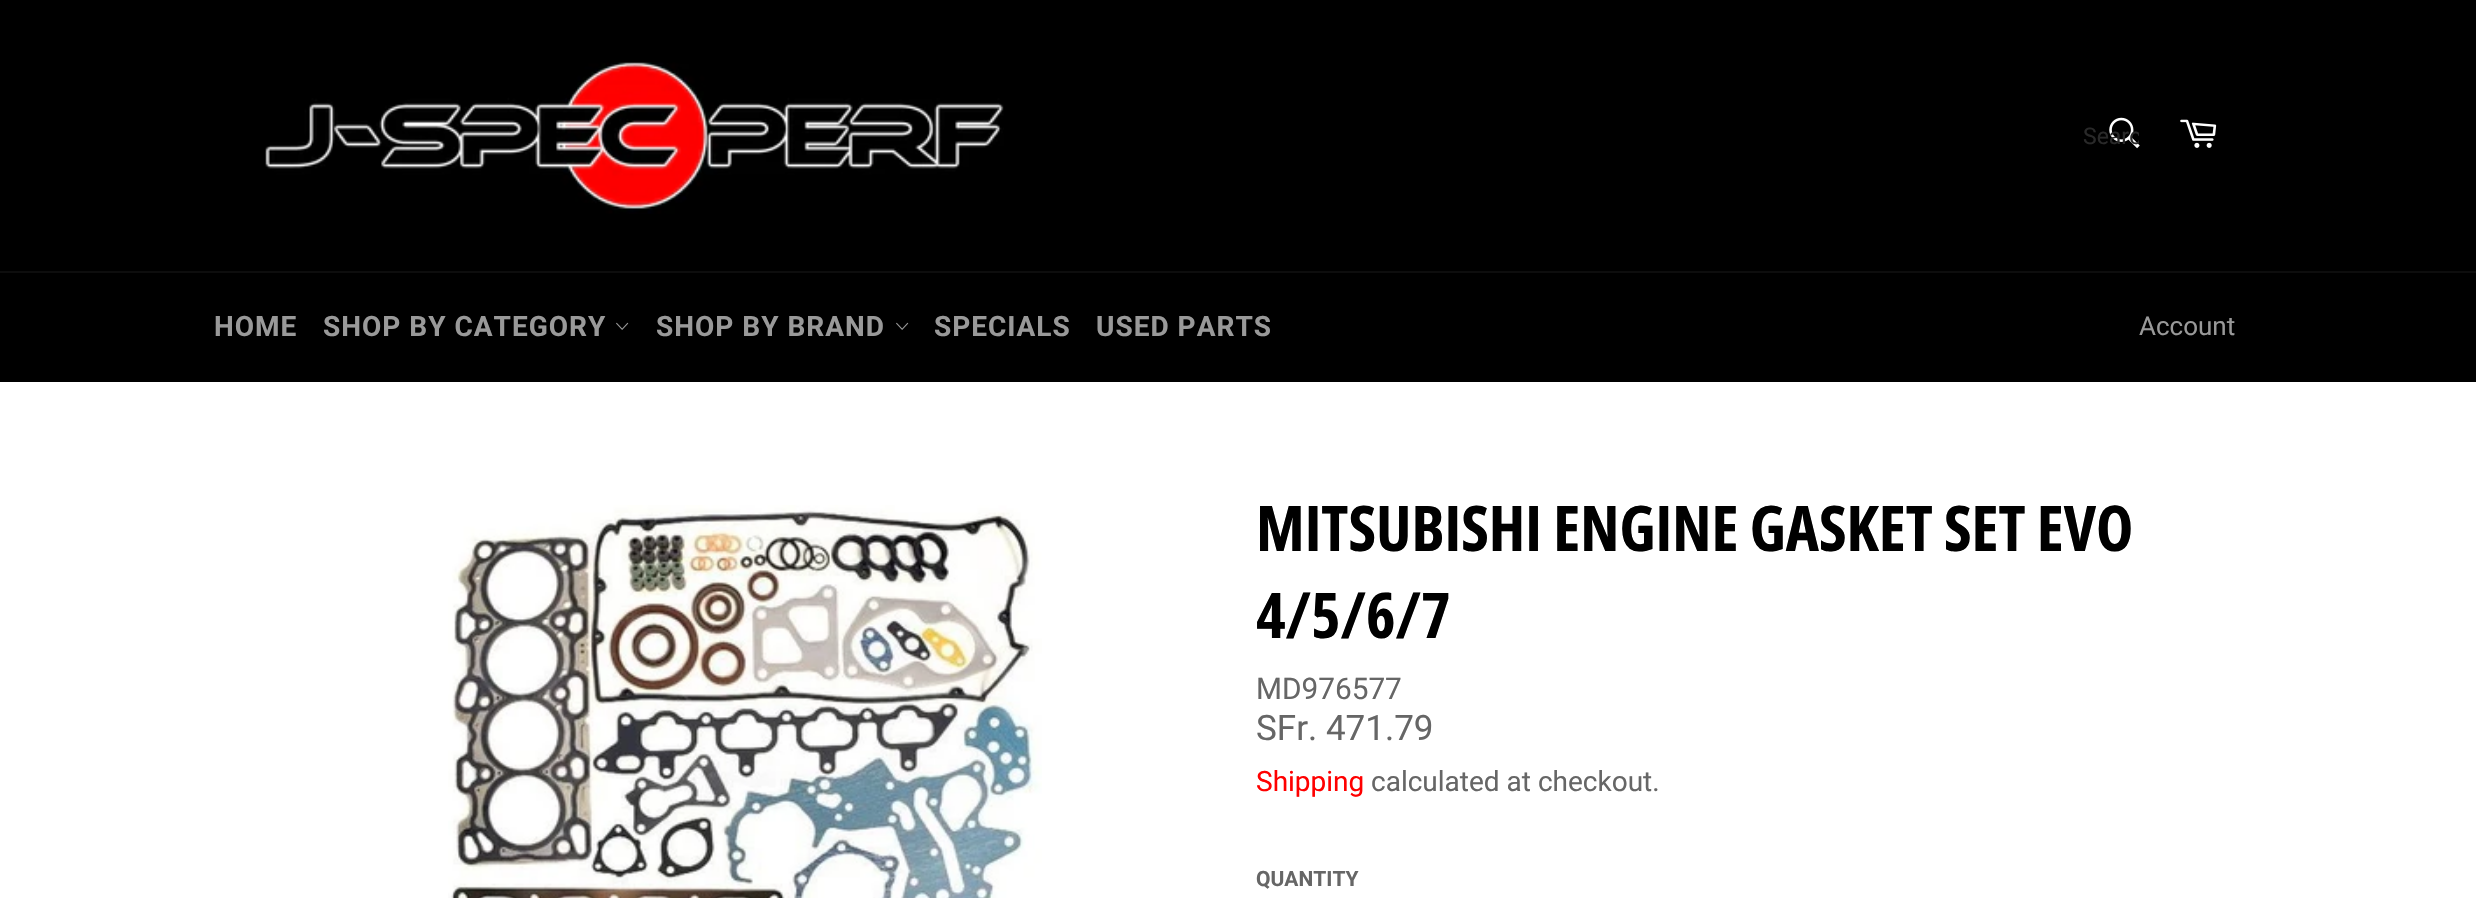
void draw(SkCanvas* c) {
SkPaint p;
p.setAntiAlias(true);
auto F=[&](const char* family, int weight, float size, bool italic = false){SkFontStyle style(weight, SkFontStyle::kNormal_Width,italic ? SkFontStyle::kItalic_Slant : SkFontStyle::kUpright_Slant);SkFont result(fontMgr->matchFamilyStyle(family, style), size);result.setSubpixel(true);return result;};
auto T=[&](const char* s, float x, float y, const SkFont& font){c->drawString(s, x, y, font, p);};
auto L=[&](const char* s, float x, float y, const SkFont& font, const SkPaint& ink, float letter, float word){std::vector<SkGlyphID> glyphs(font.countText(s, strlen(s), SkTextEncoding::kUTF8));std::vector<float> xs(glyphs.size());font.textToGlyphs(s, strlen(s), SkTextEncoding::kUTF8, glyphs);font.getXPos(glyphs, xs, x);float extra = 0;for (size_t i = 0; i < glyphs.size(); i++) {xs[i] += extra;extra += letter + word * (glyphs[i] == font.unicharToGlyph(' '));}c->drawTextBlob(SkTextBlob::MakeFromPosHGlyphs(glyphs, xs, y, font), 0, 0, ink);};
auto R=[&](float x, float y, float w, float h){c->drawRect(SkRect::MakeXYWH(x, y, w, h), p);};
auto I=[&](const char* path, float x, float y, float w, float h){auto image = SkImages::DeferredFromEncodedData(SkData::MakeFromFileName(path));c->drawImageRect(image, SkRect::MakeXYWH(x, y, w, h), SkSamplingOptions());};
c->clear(0xffffffff);
p.setColor(0xff000000);
R(0,0,2476,271);
I("1.png",265,62,739,152);
I("2.png",2109,117,31,32);
c->save();
c->clipRect(SkRect::MakeXYWH(2083,123,56,26));
auto f1 = F("Roboto",400,23);
p.setColor(0xff292929);
T("Searc",2083,144,f1);
c->restore();
I("3.png",2180,119,37,29);
p.setColor(0xff000000);
R(0,273,2476,109);
p.setColor(0xff0d0d0d);
R(0,271,2476,2);
auto f2 = F("Roboto",700,28);
p.setColor(0xff999999);
L("HOME",214,336,f2,p,1,0);
L("SHOP BY CATEGORY",323,336,f2,p,1,0);
I("4.png",616,322,13,8);
L("SHOP BY BRAND",656,336,f2,p,1,0);
I("4.png",896,322,13,8);
L("SPECIALS",934,336,f2,p,1,0);
L("USED PARTS",1096,336,f2,p,1,0);
auto f3 = F("Roboto",400,26);
T("Account",2139,335,f3);
I("5.png",448,505,594,393);
auto f4 = F("Open Sans Condensed",700,63);
p.setColor(0xff000000);
T("MITSUBISHI ENGINE GASKET SET EVO",1256,551,f4);
T("4/5/6/7",1256,638,f4);
auto f5 = F("Roboto",400,29.75);
p.setColor(0xff666666);
T("MD976577",1256,699,f5);
auto f6 = F("Roboto",400,35);
T("SFr. 471.79",1256,740,f6);
auto f7 = F("Roboto",400,28);
p.setColor(0xffff0000);
T("Shipping",1256,791,f7);
p.setColor(0xff666666);
T("calculated at checkout.",1371,791,f7);
auto f8 = F("Roboto",700,21);
T("QUANTITY",1256,886,f8);
}
